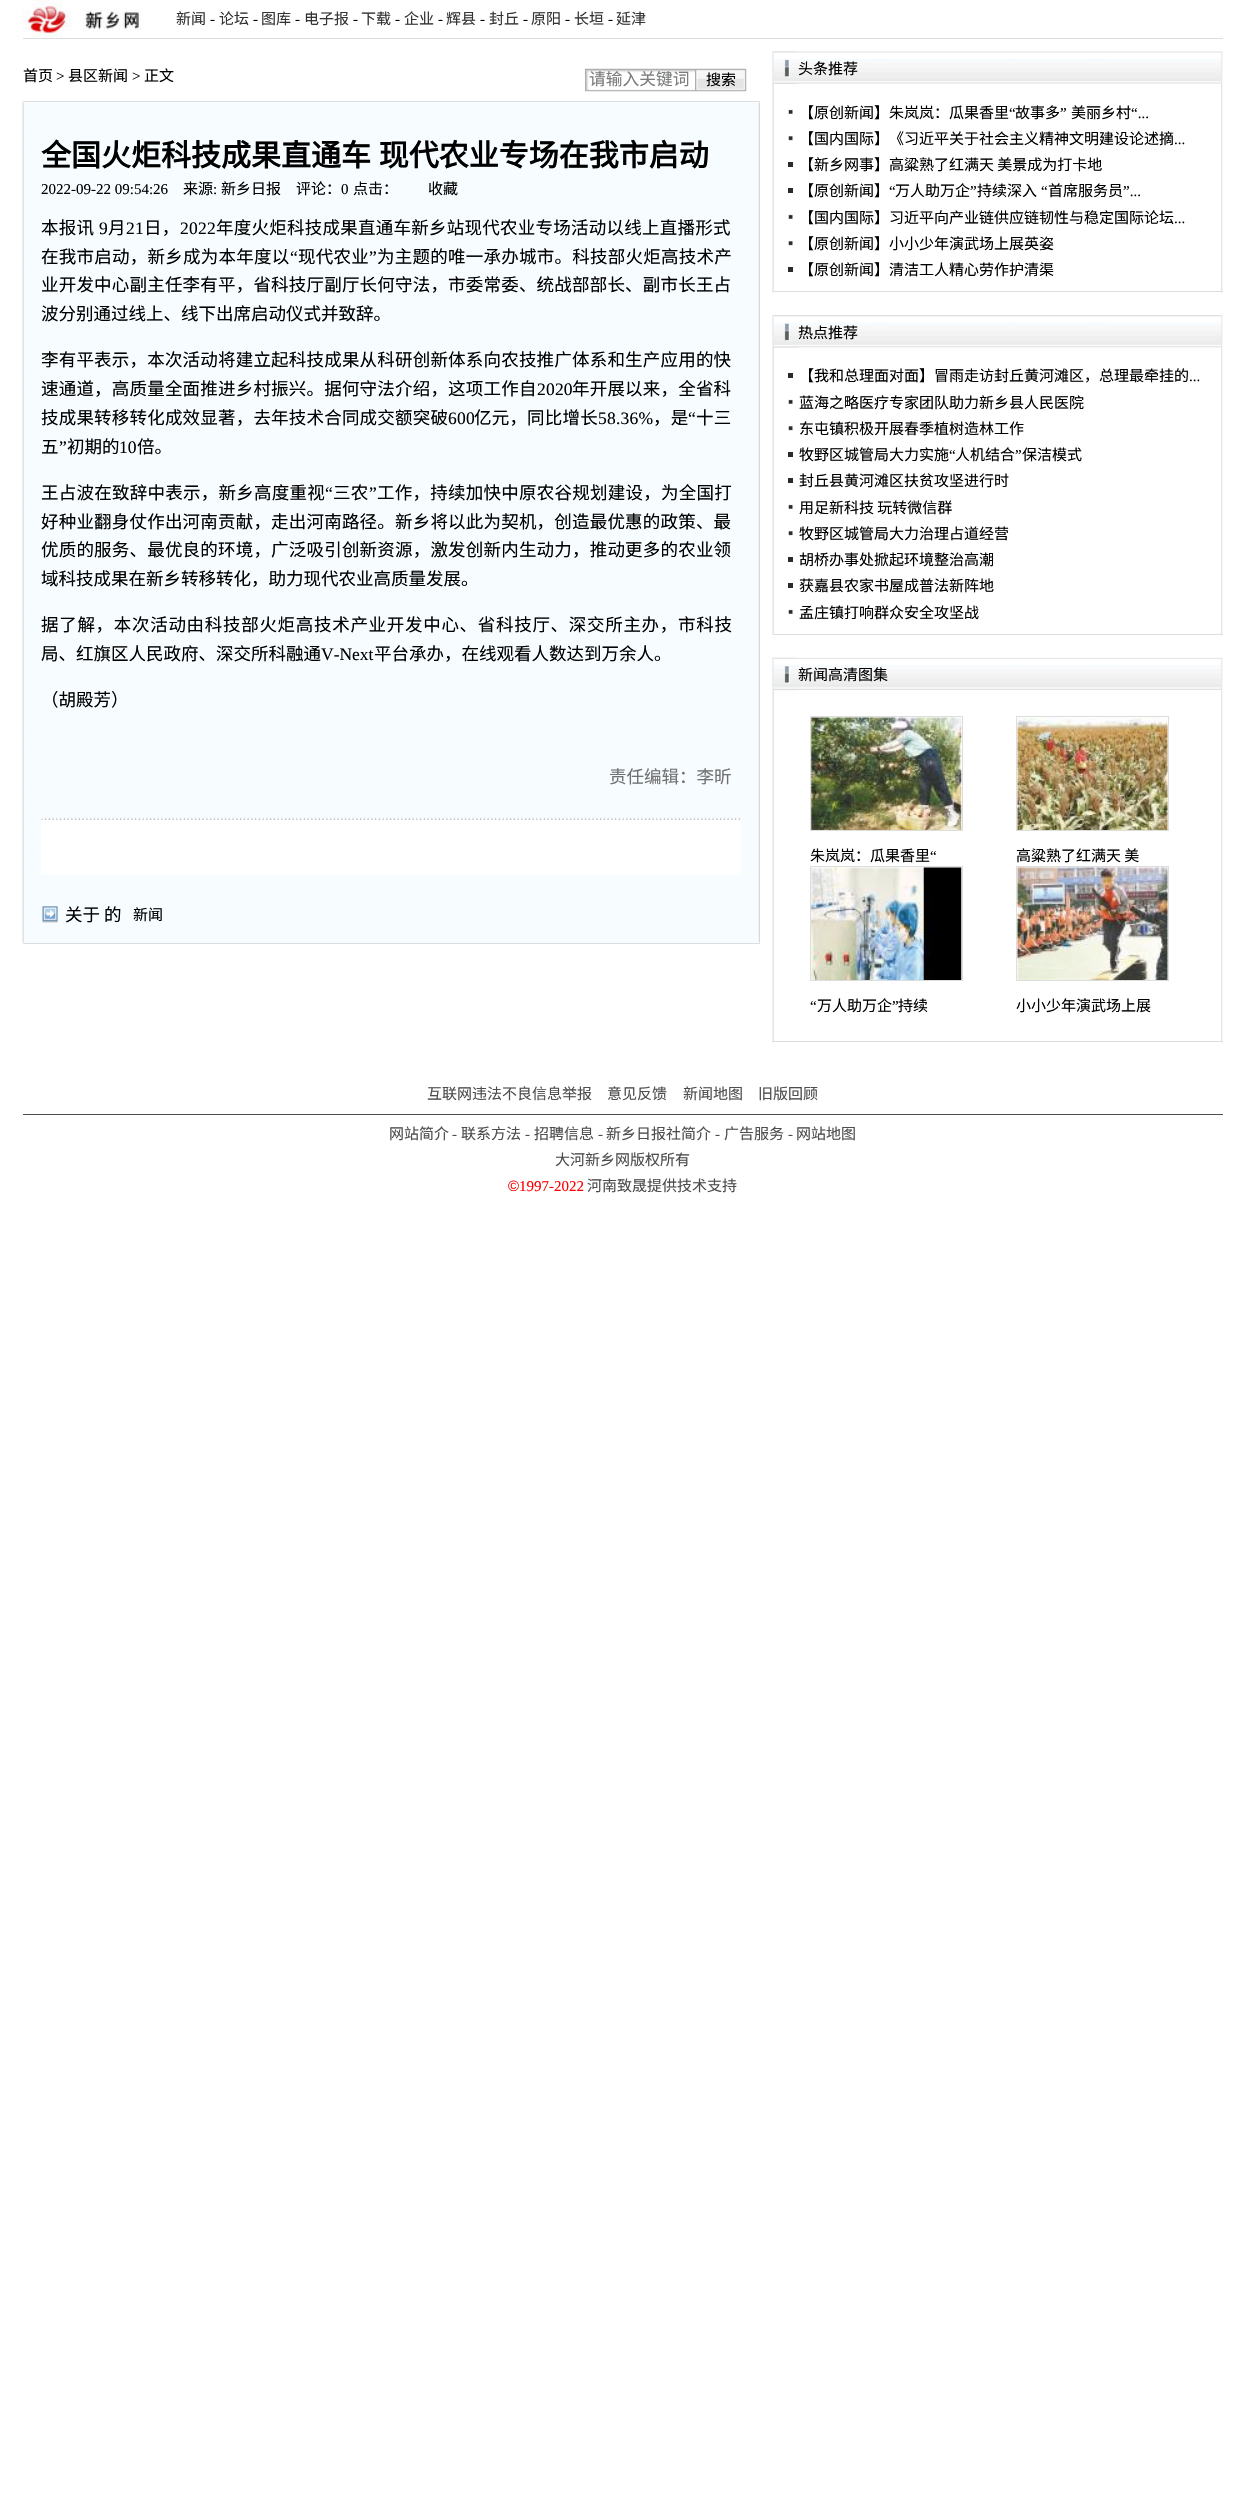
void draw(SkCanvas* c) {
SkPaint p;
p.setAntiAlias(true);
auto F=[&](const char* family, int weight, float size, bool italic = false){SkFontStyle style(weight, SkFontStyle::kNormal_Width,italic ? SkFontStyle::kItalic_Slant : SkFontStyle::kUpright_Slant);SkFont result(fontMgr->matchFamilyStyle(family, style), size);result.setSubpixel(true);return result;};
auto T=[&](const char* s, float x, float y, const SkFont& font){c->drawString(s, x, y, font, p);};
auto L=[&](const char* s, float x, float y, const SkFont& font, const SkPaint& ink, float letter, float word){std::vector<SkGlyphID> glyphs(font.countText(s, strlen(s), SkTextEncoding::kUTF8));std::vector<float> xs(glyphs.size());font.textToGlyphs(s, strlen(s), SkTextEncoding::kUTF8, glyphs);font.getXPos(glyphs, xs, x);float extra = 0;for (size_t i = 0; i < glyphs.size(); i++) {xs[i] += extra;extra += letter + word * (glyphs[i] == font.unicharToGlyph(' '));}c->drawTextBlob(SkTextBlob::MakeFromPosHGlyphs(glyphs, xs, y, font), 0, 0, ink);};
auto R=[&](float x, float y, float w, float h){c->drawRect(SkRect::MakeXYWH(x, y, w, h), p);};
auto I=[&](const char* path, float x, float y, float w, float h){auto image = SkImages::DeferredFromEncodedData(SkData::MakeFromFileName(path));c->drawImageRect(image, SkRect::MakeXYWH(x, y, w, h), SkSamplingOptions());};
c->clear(0xffffffff);
p.setColor(0xffdcdddd);
R(23,38,1200,1);
I("1.png",22,0,120,38);
auto f1 = F("Noto Sans CJK SC",400,15);
p.setColor(0xff333333);
T("新闻",176,24,f1);
auto f2 = F("Liberation Serif",400,15);
p.setColor(0xff000000);
T("-",210,24,f2);
p.setColor(0xff333333);
T("论坛",219,24,f1);
p.setColor(0xff000000);
T("-",253,24,f2);
p.setColor(0xff333333);
T("图库",261,24,f1);
p.setColor(0xff000000);
T("-",295,24,f2);
p.setColor(0xff333333);
T("电子报",304,24,f1);
p.setColor(0xff000000);
T("-",353,24,f2);
p.setColor(0xff333333);
T("下载",361,24,f1);
p.setColor(0xff000000);
T("-",395,24,f2);
p.setColor(0xff333333);
T("企业",404,24,f1);
p.setColor(0xff000000);
T("-",438,24,f2);
p.setColor(0xff333333);
T("辉县",446,24,f1);
p.setColor(0xff000000);
T("-",480,24,f2);
p.setColor(0xff333333);
T("封丘",489,24,f1);
p.setColor(0xff000000);
T("-",523,24,f2);
p.setColor(0xff333333);
T("原阳",531,24,f1);
p.setColor(0xff000000);
T("-",565,24,f2);
p.setColor(0xff333333);
T("长垣",574,24,f1);
p.setColor(0xff000000);
T("-",608,24,f2);
p.setColor(0xff333333);
T("延津",616,24,f1);
p.setColor(0xff000000);
T("首页",23,81,f1);
T(">",56,81,f2);
T("县区新闻",68,81,f1);
T(">",132,81,f2);
T("正文",144,81,f1);
I("2.png",585,68,110,24);
auto f3 = F("Noto Sans CJK SC",400,16.75);
p.setColor(0xff7b7c7d);
T("请输入关键词",589,85,f3);
I("3.png",695,68,52,24);
p.setColor(0xff000000);
T("搜索",706,85,f1);
p.setColor(0xffdcdddd);
R(23,101,737,1);
I("4.png",22,102,738,841);
auto f4 = F("Noto Sans CJK SC",700,30);
p.setColor(0xff000000);
L("全国火炬科技成果直通车 现代农业专场在我市启动",41,166,f4,p,0,1);
T("2022-09-22 09:54:26",41,194,f2);
T("来源",183,194,f1);
T(":",213,194,f2);
T("新乡日报",221,194,f1);
T("评论：",296,194,f1);
T("0",341,194,f2);
T("点击：",353,194,f1);
T("收藏",428,194,f1);
auto f5 = F("Noto Sans CJK SC",400,17.5);
L("本报讯",41,234,f5,p,.25,0);
auto f6 = F("Liberation Serif",400,17.5);
L("9",99,234,f6,p,.25,0);
L("月",108,234,f5,p,.25,0);
L("21",126,234,f6,p,.25,0);
L("日，",144,234,f5,p,.25,0);
L("2022",180,234,f6,p,.25,0);
L("年度火炬科技成果直通车新乡站现代农业专场活动以线上直播形式",216,234,f5,p,.25,0);
L("在我市启动，新乡成为本年度以",41,263,f5,p,.25,0);
L("“",290,263,f6,p,.25,0);
L("现代农业",298,263,f5,p,.25,0);
L("”",369,263,f6,p,.25,0);
L("为主题的唯一承办城市。科技部火炬高技术产",377,263,f5,p,.25,0);
L("业开发中心副主任李有平，省科技厅副厅长何守法，市委常委、统战部部长、副市长王占",41,291,f5,p,.2,0);
T("波分别通过线上、线下出席启动仪式并致辞。",41,320,f5);
L("李有平表示，本次活动将建立起科技成果从科研创新体系向农技推广体系和生产应用的快",41,366,f5,p,.2,0);
L("速通道，高质量全面推进乡村振兴。据何守法介绍，这项工作自",41,395,f5,p,.2,0);
L("2020",537,395,f6,p,.2,0);
L("年开展以来，全省科",572,395,f5,p,.2,0);
L("技成果转移转化成效显著，去年技术合同成交额突破",41,424,f5,p,.2,0);
L("600",448,424,f6,p,.2,0);
L("亿元，同比增长",474,424,f5,p,.2,0);
L("58.36%",598,424,f6,p,.2,0);
L("，是",653,424,f5,p,.2,0);
L("“",688,424,f6,p,.2,0);
L("十三",696,424,f5,p,.2,0);
T("五",41,453,f5);
T("”",59,453,f6);
T("初期的",67,453,f5);
T("10",119,453,f6);
T("倍。",137,453,f5);
L("王占波在致辞中表示，新乡高度重视",41,499,f5,p,.25,0);
L("“",325,499,f6,p,.25,0);
L("三农",333,499,f5,p,.25,0);
L("”",369,499,f6,p,.25,0);
L("工作，持续加快中原农谷规划建设，为全国打",377,499,f5,p,.25,0);
L("好种业翻身仗作出河南贡献，走出河南路径。新乡将以此为契机，创造最优惠的政策、最",41,528,f5,p,.2,0);
L("优质的服务、最优良的环境，广泛吸引创新资源，激发创新内生动力，推动更多的农业领",41,556,f5,p,.2,0);
T("域科技成果在新乡转移转化，助力现代农业高质量发展。",41,585,f5);
L("据了解，本次活动由科技部火炬高技术产业开发中心、省科技厅、深交所主办，市科技",41,631,f5,p,.7,0);
T("局、红旗区人民政府、深交所科融通",41,660,f5);
T("V-Next",321,660,f6);
T("平台承办，在线观看人数达到万余人。",374,660,f5);
T("（胡殿芳）",41,706,f5);
p.setColor(0xff727171);
T("责任编辑：李昕",609,783,f5);
p.setColor(0xffffffff);
R(41,818,700,57);
I("5.png",41,817,700,2);
I("6.png",41,819,700,1);
I("7.png",42,906,16,17);
p.setColor(0xff000000);
T("关于",65,921,f5);
T("的",104,921,f5);
T("新闻",133,920,f1);
p.setColor(0xffdcdddd);
R(23,943,737,1);
I("8.png",772,51,451,242);
R(773,291,450,1);
I("9.png",773,51,449,33);
I("10.png",773,51,25,33);
p.setColor(0xff000000);
T("头条推荐",798,74,f1);
I("11.png",788,109,5,5);
T("【原创新闻】朱岚岚：瓜果香里",799,118,f1);
T("“",1009,118,f2);
T("故事多",1015,118,f1);
T("”",1060,118,f2);
T("美丽乡村",1071,118,f1);
T("“...",1131,118,f2);
I("12.png",788,136,5,5);
T("【国内国际】《习近平关于社会主义精神文明建设论述摘",799,144,f1);
T("...",1174,144,f2);
p.setColor(0xff2b2b2b);
R(788,162,5,5);
p.setColor(0xff000000);
T("【新乡网事】",799,170,f1);
T("高粱熟了红满天 美景成为打卡地",889,170,f1);
p.setColor(0xff2b2b2b);
R(788,188,5,5);
p.setColor(0xff000000);
T("【原创新闻】",799,196,f1);
T("“",889,196,f2);
T("万人助万企",895,196,f1);
T("”",970,196,f2);
T("持续深入",977,196,f1);
T("“",1041,196,f2);
T("首席服务员",1048,196,f1);
T("”...",1123,196,f2);
I("11.png",788,214,5,5);
T("【国内国际】习近平向产业链供应链韧性与稳定国际论坛",799,223,f1);
T("...",1174,223,f2);
I("12.png",788,241,5,5);
T("【原创新闻】小小少年演武场上展英姿",799,249,f1);
p.setColor(0xff2b2b2b);
R(788,267,5,5);
p.setColor(0xff000000);
T("【原创新闻】清洁工人精心劳作护清渠",799,275,f1);
I("13.png",772,315,451,320);
p.setColor(0xffdcdddd);
R(773,634,450,1);
I("14.png",773,315,449,33);
I("15.png",773,317,25,31);
p.setColor(0xff000000);
T("热点推荐",798,338,f1);
p.setColor(0xff2b2b2b);
R(788,373,5,5);
p.setColor(0xff000000);
T("【我和总理面对面】冒雨走访封丘黄河滩区，总理最牵挂的",799,381,f1);
T("...",1189,381,f2);
I("11.png",788,399,5,5);
T("蓝海之略医疗专家团队助力新乡县人民医院",799,408,f1);
I("12.png",788,426,5,5);
T("东屯镇积极开展春季植树造林工作",799,434,f1);
p.setColor(0xff2b2b2b);
R(788,452,5,5);
p.setColor(0xff000000);
T("牧野区城管局大力实施",799,460,f1);
T("“",949,460,f2);
T("人机结合",955,460,f1);
T("”",1015,460,f2);
T("保洁模式",1022,460,f1);
p.setColor(0xff2b2b2b);
R(788,478,5,5);
p.setColor(0xff000000);
T("封丘县黄河滩区扶贫攻坚进行时",799,486,f1);
I("11.png",788,504,5,5);
T("用足新科技 玩转微信群",799,513,f1);
I("12.png",788,531,5,5);
T("牧野区城管局大力治理占道经营",799,539,f1);
p.setColor(0xff2b2b2b);
R(788,557,5,5);
p.setColor(0xff000000);
T("胡桥办事处掀起环境整治高潮",799,565,f1);
p.setColor(0xff2b2b2b);
R(788,583,5,5);
p.setColor(0xff000000);
T("获嘉县农家书屋成普法新阵地",799,591,f1);
I("11.png",788,609,5,5);
T("孟庄镇打响群众安全攻坚战",799,618,f1);
I("16.png",772,657,451,386);
p.setColor(0xffdcdddd);
R(773,1041,450,1);
I("17.png",773,657,449,33);
I("18.png",773,657,25,34);
p.setColor(0xff000000);
T("新闻高清图集",798,680,f1);
p.setStroke(true);
p.setStrokeWidth(1);
p.setColor(0xffdcdddd);
c->drawRect(SkRect::MakeXYWH(810.5,716.5,152,114),p);
I("19.png",811,717,151,113);
p.setStroke(false);
p.setColor(0xff000000);
T("朱岚岚：瓜果香里",810,861,f1);
T("“",930,861,f2);
p.setStroke(true);
p.setColor(0xffdcdddd);
c->drawRect(SkRect::MakeXYWH(1016.5,716.5,152,114),p);
I("20.png",1017,717,151,113);
p.setStroke(false);
p.setColor(0xff000000);
T("高粱熟了红满天 美",1016,861,f1);
p.setStroke(true);
p.setColor(0xffdcdddd);
c->drawRect(SkRect::MakeXYWH(810.5,866.5,152,114),p);
I("21.png",811,867,151,113);
p.setStroke(false);
p.setColor(0xff000000);
T("“",810,1011,f2);
T("万人助万企",817,1011,f1);
T("”",892,1011,f2);
T("持续",898,1011,f1);
p.setStroke(true);
p.setColor(0xffdcdddd);
c->drawRect(SkRect::MakeXYWH(1016.5,866.5,152,114),p);
I("22.png",1017,867,151,113);
p.setStroke(false);
p.setColor(0xff000000);
T("小小少年演武场上展",1016,1011,f1);
p.setColor(0xff4d4d4d);
R(23,1114,1200,1);
T("互联网违法不良信息举报",427,1099,f1);
T("意见反馈",607,1099,f1);
T("新闻地图",683,1099,f1);
T("旧版回顾",758,1099,f1);
T("网站简介",389,1139,f1);
T("-",452,1139,f2);
T("联系方法",461,1139,f1);
T("-",525,1139,f2);
T("招聘信息",534,1139,f1);
T("-",598,1139,f2);
T("新乡日报社简介",606,1139,f1);
T("-",715,1139,f2);
T("广告服务",724,1139,f1);
T("-",788,1139,f2);
T("网站地图",796,1139,f1);
T("大河新乡网版权所有",555,1165,f1);
auto f7 = F("Liberation Sans",400,15);
p.setColor(0xffff0000);
T("©",508,1191,f7);
T("1997-2022",519,1191,f2);
p.setColor(0xff4d4d4d);
T("河南致晟提供技术支持",587,1191,f1);
}
